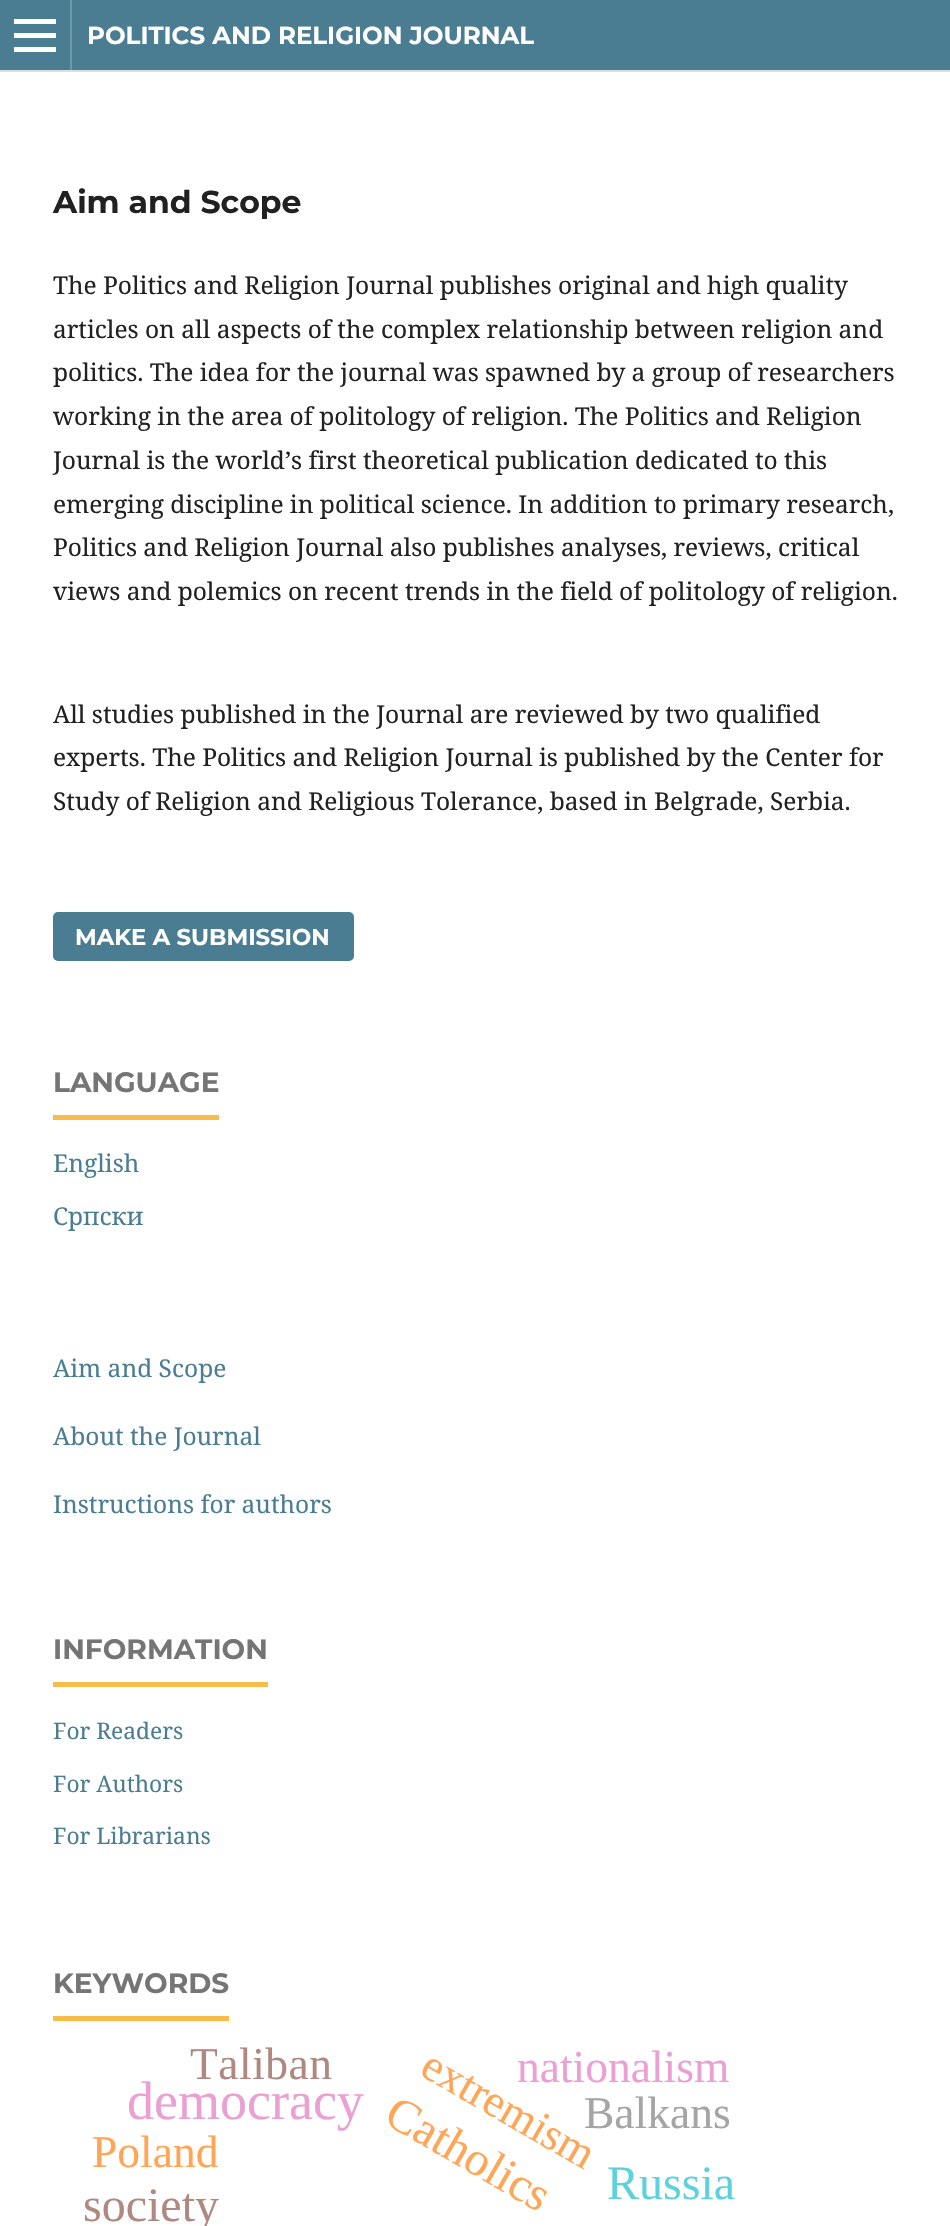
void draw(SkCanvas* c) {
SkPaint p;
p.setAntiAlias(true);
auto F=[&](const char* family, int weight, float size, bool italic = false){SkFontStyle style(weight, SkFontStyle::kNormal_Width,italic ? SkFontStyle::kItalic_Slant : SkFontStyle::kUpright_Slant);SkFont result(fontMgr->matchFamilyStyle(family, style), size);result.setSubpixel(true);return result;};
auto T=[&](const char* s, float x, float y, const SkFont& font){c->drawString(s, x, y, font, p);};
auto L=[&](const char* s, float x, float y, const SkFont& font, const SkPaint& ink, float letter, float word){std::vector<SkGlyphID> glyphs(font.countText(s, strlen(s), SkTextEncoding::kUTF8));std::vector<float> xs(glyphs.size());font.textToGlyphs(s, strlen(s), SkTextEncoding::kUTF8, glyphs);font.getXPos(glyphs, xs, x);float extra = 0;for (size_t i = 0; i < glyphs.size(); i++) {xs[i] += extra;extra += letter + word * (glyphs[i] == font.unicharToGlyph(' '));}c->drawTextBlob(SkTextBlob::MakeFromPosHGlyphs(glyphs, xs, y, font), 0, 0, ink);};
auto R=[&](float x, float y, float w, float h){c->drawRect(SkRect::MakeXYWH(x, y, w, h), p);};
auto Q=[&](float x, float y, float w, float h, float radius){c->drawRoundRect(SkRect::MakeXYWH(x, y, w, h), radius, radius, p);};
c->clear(0xffffffff);
p.setColor(0xff4b7d92);
R(0,0,950,70);
p.setColor(0xffdddddd);
R(0,70,950,2);
p.setColor(0xff6f97a8);
R(70,0,2,70);
p.setColor(0xffffffff);
R(14,47,42,5);
R(14,19,42,5);
R(14,33,42,5);
auto f1 = F("Montserrat",700,24.5);
T("POLITICS AND RELIGION JOURNAL",87,44,f1);
auto f2 = F("Montserrat",700,31.5);
p.setColor(0xff212121);
T("Aim and Scope",53,213,f2);
auto f3 = F("Noto Serif",400,24.5);
T("The Politics and Religion Journal publishes original and high quality",53,294,f3);
T("articles on all aspects of the complex relationship between religion and",53,338,f3);
T("politics. The idea for the journal was spawned by a group of researchers",53,381,f3);
T("working in the area of politology of religion. The Politics and Religion",53,425,f3);
T("Journal is the world’s first theoretical publication dedicated to this",53,469,f3);
T("emerging discipline in political science. In addition to primary research,",53,513,f3);
T("Politics and Religion Journal also publishes analyses, reviews, critical",53,556,f3);
T("views and polemics on recent trends in the field of politology of religion.",53,600,f3);
T("All studies published in the Journal are reviewed by two qualified",53,723,f3);
T("experts. The Politics and Religion Journal is published by the Center for",53,766,f3);
T("Study of Religion and Religious Tolerance, based in Belgrade, Serbia.",53,810,f3);
p.setColor(0xff4b7d92);
Q(53,912,301,49,5);
auto f4 = F("Montserrat",700,22.75);
p.setColor(0xffffffff);
T("MAKE A SUBMISSION",75,945,f4);
p.setColor(0xfff7bc4a);
R(53,1115,166,5);
auto f5 = F("Montserrat",700,28);
p.setColor(0xff757575);
T("LANGUAGE",53,1092,f5);
p.setColor(0xff4b7d92);
T("English",53,1172,f3);
T("Cрпски",53,1225,f3);
T("Aim and Scope",53,1377,f3);
T("About the Journal",53,1445,f3);
T("Instructions for authors",53,1513,f3);
p.setColor(0xfff7bc4a);
R(53,1682,215,5);
p.setColor(0xff757575);
T("INFORMATION",53,1659,f5);
auto f6 = F("Noto Serif",400,22.75);
p.setColor(0xff4b7d92);
T("For Readers",53,1739,f6);
T("For Authors",53,1792,f6);
T("For Librarians",53,1844,f6);
p.setColor(0xfff7bc4a);
R(53,2016,176,5);
p.setColor(0xff757575);
T("KEYWORDS",53,1993,f5);
auto f7 = F("Liberation Serif",400,45.5);
p.setColor(0xffaf8981);
L("Taliban",190,2079,f7,p,.5,0);
auto f8 = F("Liberation Serif",400,48);
p.setColor(0xffffa556);
c->save();
c->rotate(30,382,2122);
T("Catholics",382,2122,f8);
c->restore();
c->save();
c->rotate(30,418,2074);
T("extremism",418,2074,f7);
c->restore();
p.setColor(0xffeba0d4);
T("nationalism",517,2082,f7);
auto f9 = F("Liberation Serif",400,54);
T("democracy",127,2119,f9);
p.setColor(0xffa5a5a5);
T("Balkans",584,2128,f7);
p.setColor(0xffffa556);
T("Poland",92,2167,f7);
p.setColor(0xff5dd2dd);
T("Russia",607,2199,f8);
p.setColor(0xffaf8981);
T("society",83,2221,f8);
}
